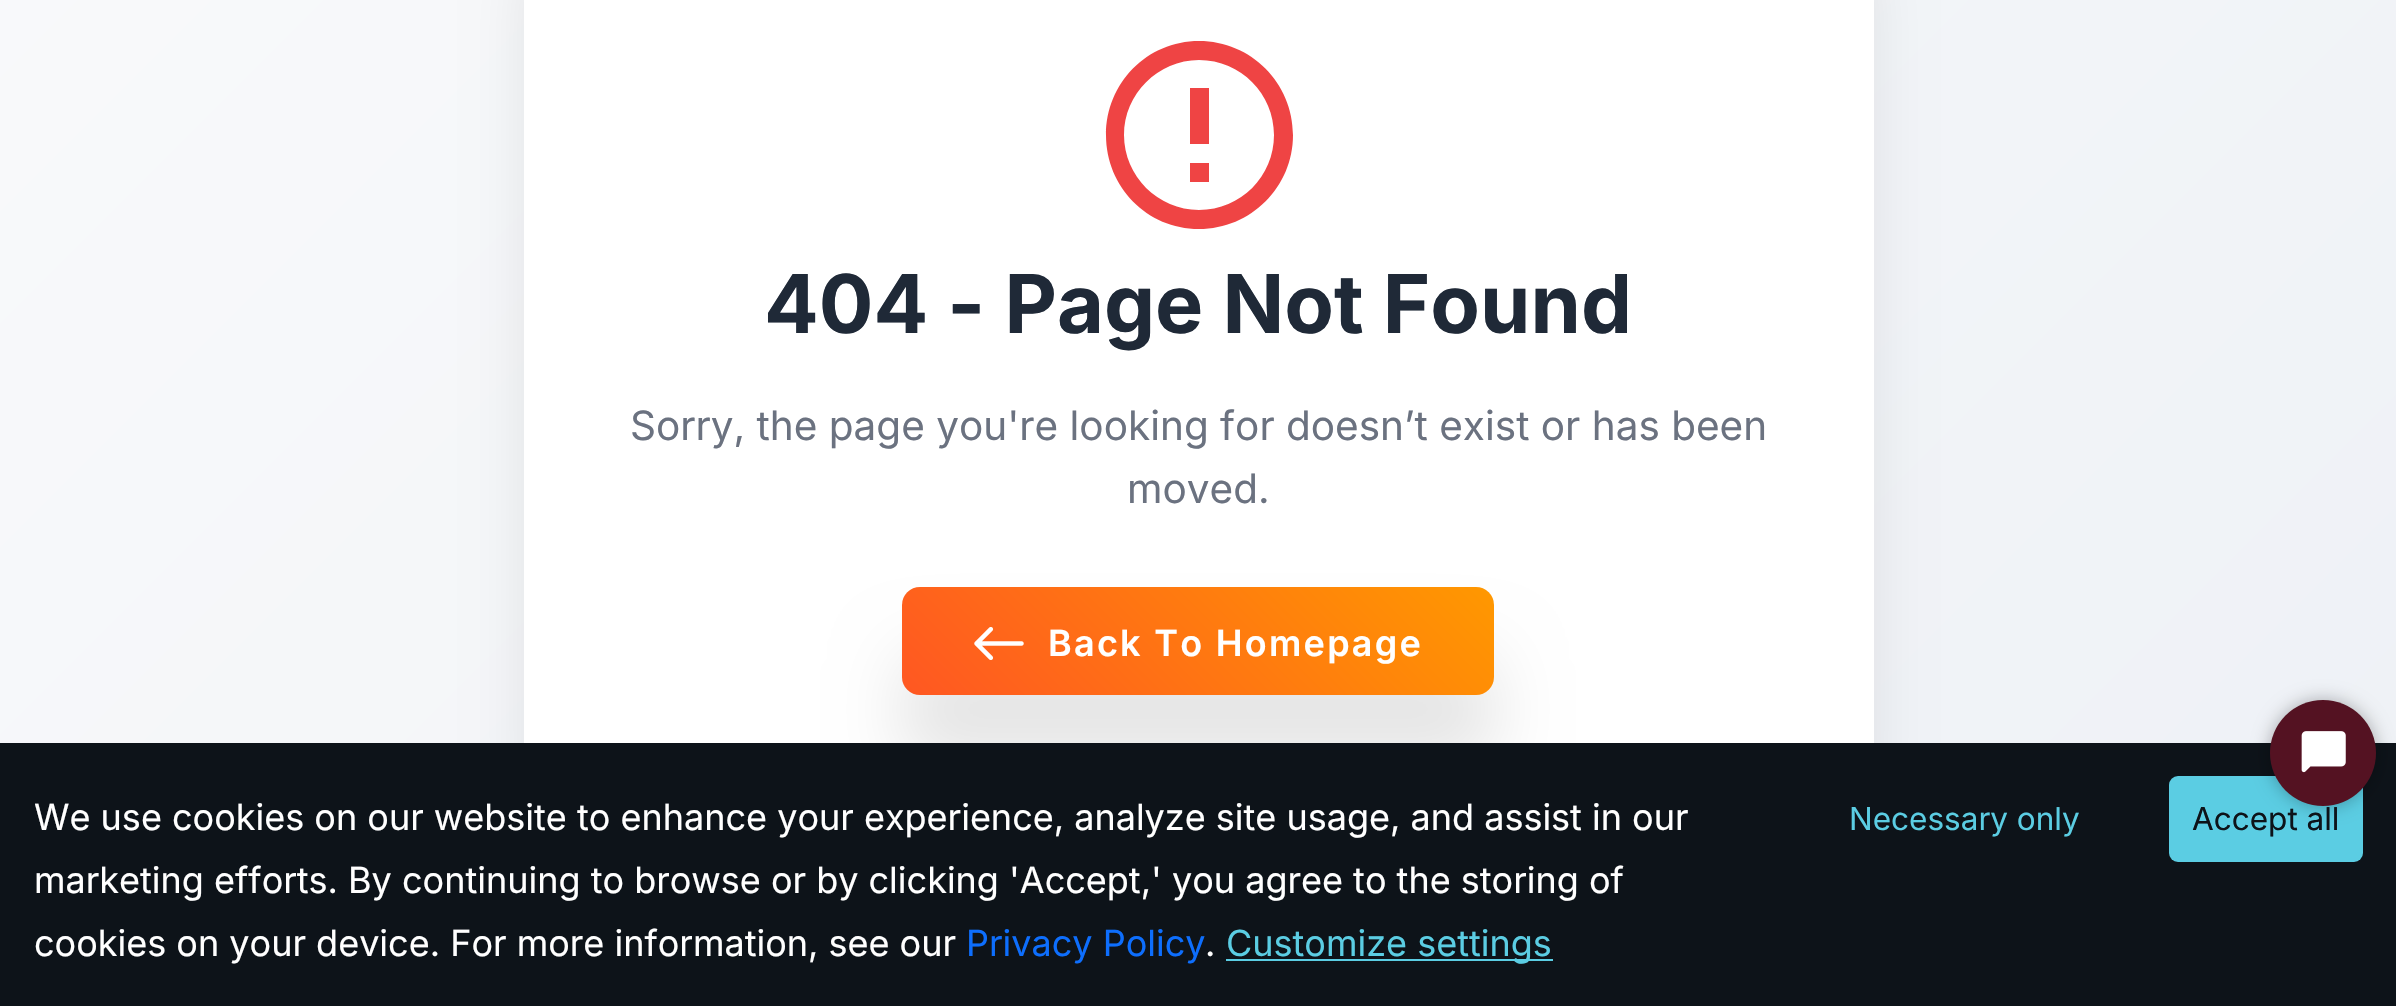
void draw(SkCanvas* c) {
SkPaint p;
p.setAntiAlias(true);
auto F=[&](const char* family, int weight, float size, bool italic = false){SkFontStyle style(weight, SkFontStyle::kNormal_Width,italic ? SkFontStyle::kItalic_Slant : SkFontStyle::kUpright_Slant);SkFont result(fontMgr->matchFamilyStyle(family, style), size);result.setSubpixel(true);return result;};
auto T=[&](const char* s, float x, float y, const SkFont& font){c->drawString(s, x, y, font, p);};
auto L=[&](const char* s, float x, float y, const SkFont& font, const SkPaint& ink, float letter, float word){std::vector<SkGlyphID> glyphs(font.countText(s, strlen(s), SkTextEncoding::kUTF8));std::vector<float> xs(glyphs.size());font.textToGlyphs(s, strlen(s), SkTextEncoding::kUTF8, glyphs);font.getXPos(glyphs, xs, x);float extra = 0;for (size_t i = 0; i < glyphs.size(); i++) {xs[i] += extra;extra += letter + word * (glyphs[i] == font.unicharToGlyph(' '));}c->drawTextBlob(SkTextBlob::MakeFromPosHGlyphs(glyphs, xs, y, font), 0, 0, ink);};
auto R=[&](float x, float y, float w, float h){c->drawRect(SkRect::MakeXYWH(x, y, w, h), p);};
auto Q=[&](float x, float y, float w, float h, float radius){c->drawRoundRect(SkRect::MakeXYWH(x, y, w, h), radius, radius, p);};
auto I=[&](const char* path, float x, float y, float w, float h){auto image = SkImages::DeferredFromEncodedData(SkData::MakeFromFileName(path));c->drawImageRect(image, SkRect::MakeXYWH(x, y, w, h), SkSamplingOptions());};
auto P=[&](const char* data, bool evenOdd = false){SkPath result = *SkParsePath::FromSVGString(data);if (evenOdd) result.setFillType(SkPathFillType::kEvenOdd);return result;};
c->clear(0xffffffff);
{
const SkColor colors[] = {0xfff9fafb,0xffeef1f6};
const float stops[] = {0,1};
const SkPoint ends[] = {{273,-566}, {2123,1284}};
p.setShader(SkGradientShader::MakeLinear(ends, colors, stops, 2, SkTileMode::kClamp));
p.setAlpha(255);
}
R(0,0,2396,743);
p.setShader(nullptr);
p.setColor(0x14000000);
p.setMaskFilter(SkMaskFilter::MakeBlur(kNormal_SkBlurStyle, 28));
c->drawRoundRect(SkRect::MakeXYWH(524,-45,1350,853),36,36,p);
p.setMaskFilter(nullptr);
p.setColor(0xffffffff);
R(524,0,1350,743);
p.setColor(0xffef4444);
c->drawPath(P("M1190 163h19v19h-19zm0-75h19v56h-19zm9-47c-52 0-93 42-93 94c0 52 41 94 93 94c52 0 94-42 94-94c0-52-42-94-94-94zm0 169c-41 0-75-34-75-75c0-41 34-75 75-75c42 0 75 34 75 75c0 41-33 75-75 75z"),p);
auto f1 = F("Inter",700,81);
p.setColor(0xff1f2937);
T("404 - Page Not Found",764,333,f1);
auto f2 = F("Inter",400,40.5);
p.setColor(0xff6b7280);
T("Sorry, the page you're looking for doesn’t exist or has been",630,440,f2);
T("moved.",1127,503,f2);
p.setColor(0x1a000000);
p.setMaskFilter(SkMaskFilter::MakeBlur(kNormal_SkBlurStyle, 34));
c->drawRoundRect(SkRect::MakeXYWH(902,655,592,108),18,18,p);
p.setMaskFilter(nullptr);
{
const SkColor colors[] = {0xffff5722,0xffff9800};
const float stops[] = {0,1};
const SkPoint ends[] = {{1023,816}, {1373,466}};
p.setShader(SkGradientShader::MakeLinear(ends, colors, stops, 2, SkTileMode::kClamp));
p.setAlpha(255);
}
Q(902,587,592,108,18);
I("1.png",974,627,50,33);
auto f3 = F("Inter",600,36);
p.setShader(nullptr);
p.setColor(0xffffffff);
L("Back To Homepage",1048,656,f3,p,2.25,0);
p.setColor(0xff0d1319);
R(0,743,2396,263);
p.setColor(0xff5bcde3);
Q(2169,776,194,86,9);
p.setColor(0x4d000000);
p.setMaskFilter(SkMaskFilter::MakeBlur(kNormal_SkBlurStyle, 9));
c->drawRoundRect(SkRect::MakeXYWH(2270,700,106,106),53,53,p);
p.setMaskFilter(nullptr);
p.setColor(0xff541222);
c->drawCircle(2323,753,53,p);
I("2.png",2301,731,45,42);
auto f4 = F("Inter",400,36);
p.setColor(0xffffffff);
T("We use cookies on our website to enhance your experience, analyze site usage, and assist in our",34,830,f4);
T("marketing efforts. By continuing to browse or by clicking 'Accept,' you agree to the storing of",34,893,f4);
T("cookies on your device. For more information, see our",34,956,f4);
p.setColor(0xff0d6efd);
T("Privacy Policy",966,956,f4);
p.setColor(0xffffffff);
T(".",1205,956,f4);
p.setColor(0xff5bcde3);
R(1226,959,327,2);
T("Customize settings",1226,956,f4);
auto f5 = F("Inter",400,31.5);
T("Necessary only",1849,830,f5);
p.setColor(0xff0d1319);
T("Accept all",2192,830,f5);
}
